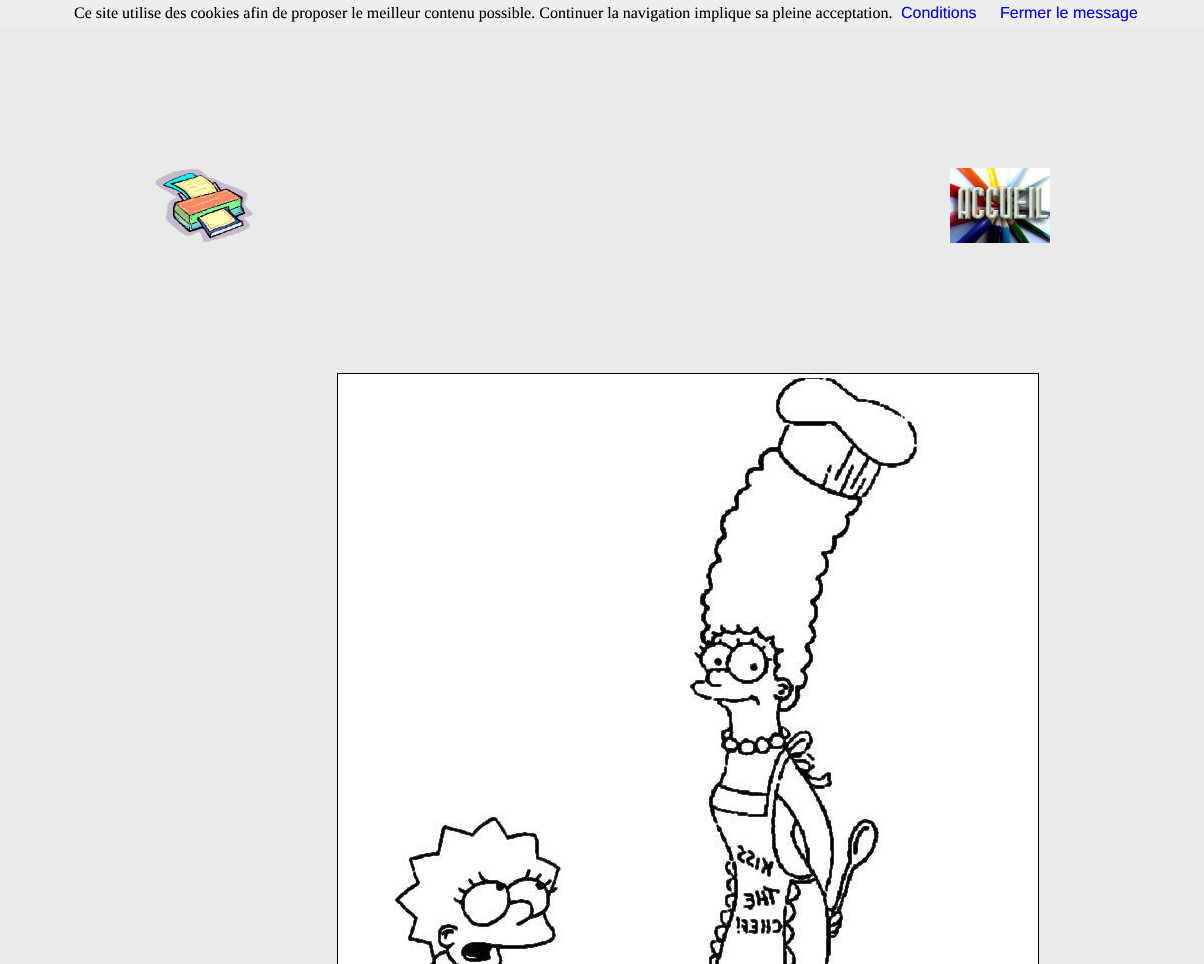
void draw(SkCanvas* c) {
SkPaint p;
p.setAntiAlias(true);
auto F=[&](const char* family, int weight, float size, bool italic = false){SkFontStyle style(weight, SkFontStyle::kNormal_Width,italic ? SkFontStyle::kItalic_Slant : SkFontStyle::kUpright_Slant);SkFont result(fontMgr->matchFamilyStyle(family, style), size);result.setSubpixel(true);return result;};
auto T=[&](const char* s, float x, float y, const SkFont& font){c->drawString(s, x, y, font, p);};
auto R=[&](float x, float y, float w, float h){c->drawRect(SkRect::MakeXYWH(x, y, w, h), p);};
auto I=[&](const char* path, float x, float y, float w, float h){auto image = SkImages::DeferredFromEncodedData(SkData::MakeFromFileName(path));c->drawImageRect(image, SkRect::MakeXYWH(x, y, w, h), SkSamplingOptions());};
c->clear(0xffeaeaea);
p.setColor(0xffeeeeee);
R(0,0,1204,26);
auto f1 = F("Liberation Serif",400,16);
p.setColor(0xff000000);
T("Ce site utilise des cookies afin de proposer le meilleur contenu possible. Continuer la navigation implique sa pleine acceptation.",74,18,f1);
auto f2 = F("Liberation Sans",400,16);
p.setColor(0xff0000ff);
T("Conditions",901,18,f2);
T("Fermer le message",1000,18,f2);
I("1.png",155,168,98,75);
I("2.png",950,168,100,75);
p.setStroke(true);
p.setStrokeWidth(1);
p.setColor(0xff000000);
c->drawRect(SkRect::MakeXYWH(337.5,373.5,701,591),p);
I("3.png",338,374,700,590);
}
